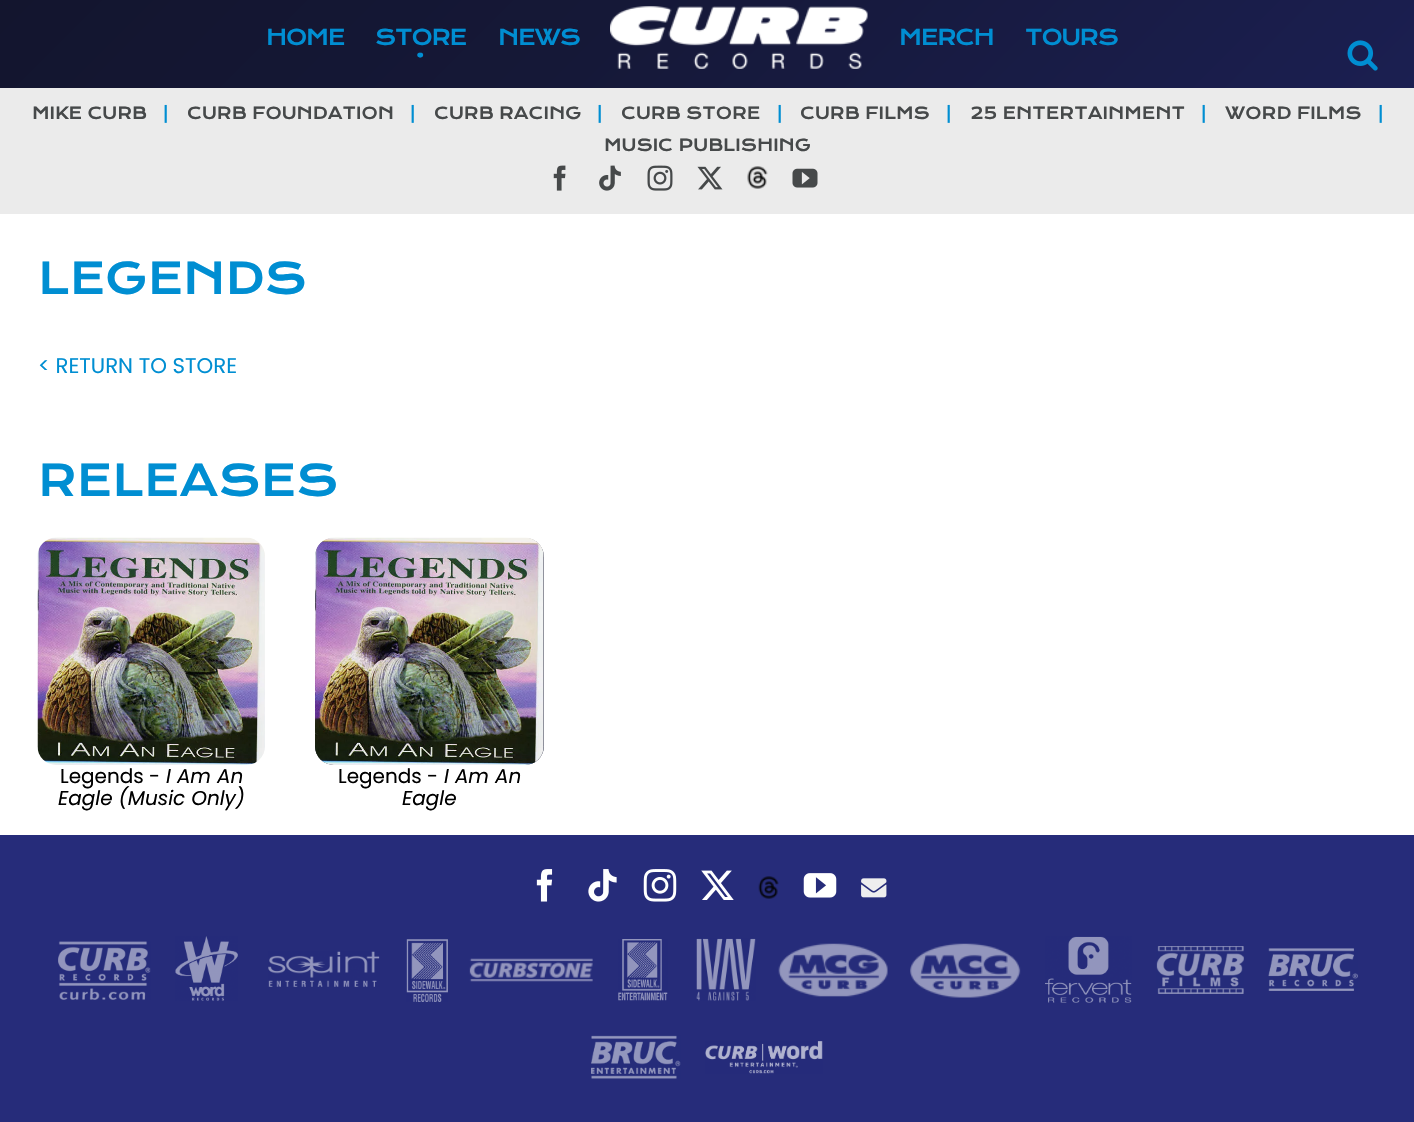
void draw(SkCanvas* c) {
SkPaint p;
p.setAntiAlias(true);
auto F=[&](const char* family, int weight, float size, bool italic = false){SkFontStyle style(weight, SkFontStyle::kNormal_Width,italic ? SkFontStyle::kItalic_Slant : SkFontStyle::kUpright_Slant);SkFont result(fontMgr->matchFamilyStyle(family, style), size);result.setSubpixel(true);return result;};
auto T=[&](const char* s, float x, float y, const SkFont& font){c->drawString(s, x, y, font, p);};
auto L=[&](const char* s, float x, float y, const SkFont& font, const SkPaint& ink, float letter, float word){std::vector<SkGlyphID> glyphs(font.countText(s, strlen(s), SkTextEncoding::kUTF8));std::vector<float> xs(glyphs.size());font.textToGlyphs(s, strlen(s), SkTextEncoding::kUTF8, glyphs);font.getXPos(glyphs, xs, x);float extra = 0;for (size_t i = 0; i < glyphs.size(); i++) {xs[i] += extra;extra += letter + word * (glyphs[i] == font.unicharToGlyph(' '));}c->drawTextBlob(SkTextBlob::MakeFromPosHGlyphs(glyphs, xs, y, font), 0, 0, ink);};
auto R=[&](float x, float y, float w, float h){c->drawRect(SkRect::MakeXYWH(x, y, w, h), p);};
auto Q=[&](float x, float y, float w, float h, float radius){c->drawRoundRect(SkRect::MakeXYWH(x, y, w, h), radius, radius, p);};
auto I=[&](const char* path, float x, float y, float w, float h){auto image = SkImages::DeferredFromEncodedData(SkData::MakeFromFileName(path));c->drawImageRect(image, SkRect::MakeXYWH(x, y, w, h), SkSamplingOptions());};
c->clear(0xffffffff);
{
const SkColor colors[] = {0xff13152e,0xff151837,0xff1b1f51};
const float stops[] = {0,.41,1};
const SkPoint ends[] = {{332,-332}, {1083,419}};
p.setShader(SkGradientShader::MakeLinear(ends, colors, stops, 3, SkTileMode::kClamp));
p.setAlpha(255);
}
R(0,0,1414,88);
auto f1 = F("Krona One",400,21.25);
p.setShader(nullptr);
p.setColor(0xff008ed2);
L("HOME",266,45,f1,p,-1.25,0);
L("STORE",375,45,f1,p,-1.25,0);
auto f2 = F("Krona One",400,25);
T("·",415,65,f2);
L("NEWS",498,45,f1,p,-1.25,0);
I("1.png",610,6,258,63);
L("MERCH",899,45,f1,p,-1.25,0);
L("TOURS",1025,45,f1,p,-1.25,0);
I("2.png",1347,40,31,31);
p.setColor(0xffebebeb);
R(0,88,1414,126);
auto f3 = F("Krona One",400,16.25);
p.setColor(0xff46494a);
T("MIKE CURB",32,119,f3);
p.setColor(0xff008ed2);
T("|",163,119,f3);
p.setColor(0xff46494a);
T("CURB FOUNDATION",187,119,f3);
p.setColor(0xff008ed2);
T("|",410,119,f3);
p.setColor(0xff46494a);
T("CURB RACING",434,119,f3);
p.setColor(0xff008ed2);
T("|",597,119,f3);
p.setColor(0xff46494a);
T("CURB STORE",621,119,f3);
p.setColor(0xff008ed2);
T("|",777,119,f3);
p.setColor(0xff46494a);
T("CURB FILMS",800,119,f3);
p.setColor(0xff008ed2);
T("|",946,119,f3);
p.setColor(0xff46494a);
T("25 ENTERTAINMENT",970,119,f3);
p.setColor(0xff008ed2);
T("|",1201,119,f3);
p.setColor(0xff46494a);
T("WORD FILMS",1225,119,f3);
p.setColor(0xff008ed2);
T("|",1378,119,f3);
p.setColor(0xff46494a);
T("MUSIC PUBLISHING",604,151,f3);
I("3.png",553,165,13,26);
I("4.png",599,165,22,26);
I("5.png",647,165,26,26);
I("6.png",697,166,26,24);
I("7.png",747,166,21,23);
I("8.png",792,168,26,20);
auto f4 = F("Krona One",400,42.5);
p.setColor(0xff008ed2);
T("LEGENDS",38,294,f4);
auto f5 = F("Poppins",400,21.25);
T("< RETURN TO STORE",38,373,f5);
T("RELEASES",38,496,f4);
I("9.png",37,537,228,228);
auto f6 = F("Poppins",400,20);
p.setColor(0xff000000);
T("Legends -",60,783,f6);
auto f7 = F("Poppins",400,20,true);
T("I Am An",166,783,f7);
T("Eagle (Music Only)",58,805,f7);
p.setColor(0xff13152e);
Q(315,538,229,227,19);
I("10.png",315,537,229,228);
p.setColor(0xff000000);
T("Legends -",338,783,f6);
T("I Am An",444,783,f7);
T("Eagle",402,805,f7);
p.setColor(0xff262c7a);
R(0,835,1414,287);
I("11.png",536,869,17,33);
I("12.png",588,869,29,33);
I("13.png",643,869,34,33);
I("14.png",701,870,33,30);
I("15.png",758,876,21,23);
I("16.png",803,873,34,25);
I("17.png",861,878,26,20);
I("18.png",58,941,93,59);
I("19.png",175,936,63,65);
I("20.png",268,951,112,36);
I("21.png",406,939,42,63);
I("22.png",469,958,124,24);
I("23.png",618,939,50,62);
I("24.png",696,938,60,63);
I("25.png",778,943,110,54);
I("26.png",910,943,111,55);
I("27.png",1045,936,87,67);
I("28.png",1156,946,88,48);
I("29.png",1268,948,90,43);
I("30.png",591,1035,90,44);
I("31.png",705,1041,118,33);
}
